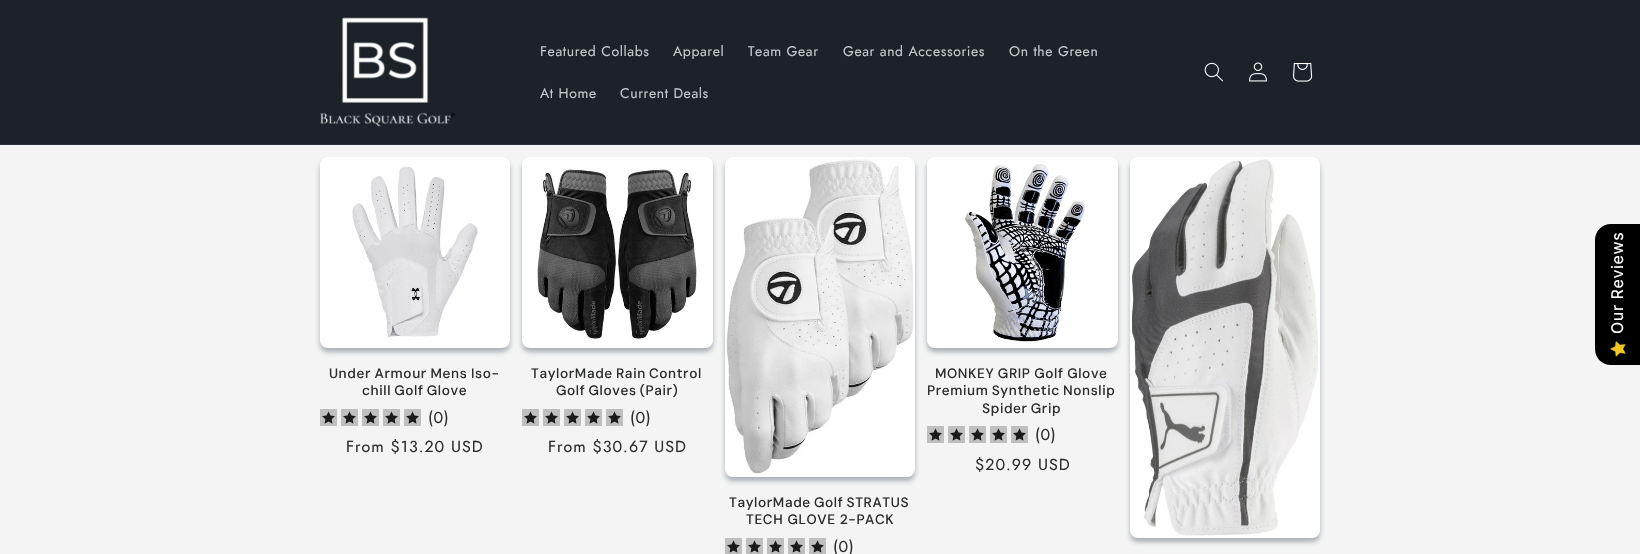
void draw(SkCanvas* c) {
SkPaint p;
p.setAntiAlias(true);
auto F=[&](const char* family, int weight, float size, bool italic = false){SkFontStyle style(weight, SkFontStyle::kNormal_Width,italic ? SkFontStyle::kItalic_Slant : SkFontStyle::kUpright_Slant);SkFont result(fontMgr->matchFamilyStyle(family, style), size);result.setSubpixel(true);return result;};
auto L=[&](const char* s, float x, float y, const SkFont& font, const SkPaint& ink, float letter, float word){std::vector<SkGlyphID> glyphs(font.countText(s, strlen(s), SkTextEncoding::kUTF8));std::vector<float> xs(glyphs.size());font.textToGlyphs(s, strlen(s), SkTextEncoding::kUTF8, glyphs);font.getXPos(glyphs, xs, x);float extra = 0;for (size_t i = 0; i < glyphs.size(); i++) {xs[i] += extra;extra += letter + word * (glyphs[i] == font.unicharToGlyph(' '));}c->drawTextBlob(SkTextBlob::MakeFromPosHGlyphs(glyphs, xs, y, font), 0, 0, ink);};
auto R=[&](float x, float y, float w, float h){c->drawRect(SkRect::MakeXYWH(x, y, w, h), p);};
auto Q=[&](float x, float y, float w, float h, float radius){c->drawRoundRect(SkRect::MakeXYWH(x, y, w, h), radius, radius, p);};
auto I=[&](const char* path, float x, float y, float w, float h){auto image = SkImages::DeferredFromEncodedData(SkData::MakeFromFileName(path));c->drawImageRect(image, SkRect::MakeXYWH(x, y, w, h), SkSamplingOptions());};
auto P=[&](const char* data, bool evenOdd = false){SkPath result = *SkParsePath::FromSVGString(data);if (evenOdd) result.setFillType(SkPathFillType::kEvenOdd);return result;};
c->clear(0xfff4f4f4);
p.setColor(0xff1c2228);
R(0,0,1640,144);
p.setColor(0xff2e3439);
R(0,144,1640,1);
I("1.png",320,17,135,110);
auto f1 = F("Jost",400,14);
p.setColor(0xffc6c8c9);
L("Featured Collabs",540,56,f1,p,.6,0);
L("Apparel",673,56,f1,p,.6,0);
L("Team Gear",748,56,f1,p,.6,0);
L("Gear and Accessories",843,56,f1,p,.6,0);
L("On the Green",1009,56,f1,p,.6,0);
L("At Home",540,98,f1,p,.6,0);
L("Current Deals",620,98,f1,p,.6,0);
I("2.png",1204,62,19,20);
I("3.png",1249,62,18,20);
I("4.png",1293,63,20,19);
p.setColor(0xff000000);
c->drawPath(P("M1595 349v-109c0-9 7-16 16-16h29v141h-29c-9 0-16-7-16-16z"),p);
auto f2 = F("Inter",400,16);
p.setColor(0xffffffff);
c->save();
c->rotate(-90,1623,334);
L("Our Reviews",1623,334,f2,p,.6,0);
c->restore();
I("5.png",1610,341,16,16);
Q(320,157,190,191,8);
c->save();
c->clipPath(P("M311 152h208v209h-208zm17 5h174c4.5 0 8 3.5 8 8v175c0 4.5-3.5 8-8 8h-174c-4.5 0-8-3.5-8-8v-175c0-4.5 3.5-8 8-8z",true),true);
p.setColor(0x4d001128);
p.setMaskFilter(SkMaskFilter::MakeBlur(kNormal_SkBlurStyle, 2.5));
c->drawRoundRect(SkRect::MakeXYWH(320,161,190,191),8,8,p);
p.setMaskFilter(nullptr);
c->restore();
I("6.png",352,166,126,171);
auto f3 = F("DM Sans",500,13.6);
p.setColor(0xff2b2c2d);
L("Under Armour Mens Iso-",329,378,f3,p,.6,-.5);
L("chill Golf Glove",362,395,f3,p,.6,-1);
p.setColor(0xffbfbfbf);
R(320,409,17,17);
I("7.png",322,411,13,13);
R(341,409,17,17);
I("7.png",343,411,13,13);
R(362,409,17,17);
I("7.png",364,411,13,13);
R(383,409,17,17);
I("7.png",385,411,13,13);
R(404,409,17,17);
I("7.png",406,411,13,13);
auto f4 = F("Jost",400,16);
p.setColor(0xff2b2c2d);
L("(0)",428,423,f4,p,.6,0);
L("From $13.20 USD",346,452,f4,p,1,0);
p.setColor(0xffffffff);
Q(522,157,191,191,8);
c->save();
c->clipPath(P("M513 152h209v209h-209zm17 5h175c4.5 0 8 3.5 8 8v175c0 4.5-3.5 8-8 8h-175c-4.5 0-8-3.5-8-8v-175c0-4.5 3.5-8 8-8z",true),true);
p.setColor(0x4d001128);
p.setMaskFilter(SkMaskFilter::MakeBlur(kNormal_SkBlurStyle, 2.5));
c->drawRoundRect(SkRect::MakeXYWH(522,161,191,191),8,8,p);
p.setMaskFilter(nullptr);
c->restore();
I("8.png",537,168,161,172);
p.setColor(0xff2b2c2d);
L("TaylorMade Rain Control",531,378,f3,p,.6,-1);
L("Golf Gloves (Pair)",556,395,f3,p,.6,-1);
p.setColor(0xffbfbfbf);
R(522,409,17,17);
I("7.png",524,411,13,13);
R(543,409,17,17);
I("7.png",545,411,13,13);
R(564,409,17,17);
I("7.png",566,411,13,13);
R(585,409,17,17);
I("7.png",587,411,13,13);
R(606,409,17,17);
I("7.png",608,411,13,13);
p.setColor(0xff2b2c2d);
L("(0)",630,423,f4,p,.6,0);
L("From $30.67 USD",548,452,f4,p,1,0);
p.setColor(0xffffffff);
Q(927,157,191,191,8);
c->save();
c->clipPath(P("M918 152h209v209h-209zm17 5h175c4.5 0 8 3.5 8 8v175c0 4.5-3.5 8-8 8h-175c-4.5 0-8-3.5-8-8v-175c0-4.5 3.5-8 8-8z",true),true);
p.setColor(0x4d001128);
p.setMaskFilter(SkMaskFilter::MakeBlur(kNormal_SkBlurStyle, 2.5));
c->drawRoundRect(SkRect::MakeXYWH(927,161,191,191),8,8,p);
p.setMaskFilter(nullptr);
c->restore();
I("9.png",964,164,122,178);
p.setColor(0xff2b2c2d);
L("MONKEY GRIP Golf Glove",935,378,f3,p,.6,-.5);
L("Premium Synthetic Nonslip",927,395,f3,p,.6,-1);
L("Spider Grip",982,413,f3,p,.6,-1);
p.setColor(0xffbfbfbf);
R(927,426,17,17);
I("7.png",929,428,13,13);
R(948,426,17,17);
I("7.png",950,428,13,13);
R(969,426,17,17);
I("7.png",971,428,13,13);
R(990,426,17,17);
I("7.png",992,428,13,13);
R(1011,426,17,17);
I("7.png",1013,428,13,13);
p.setColor(0xff2b2c2d);
L("(0)",1035,440,f4,p,.6,0);
L("$20.99 USD",975,470,f4,p,1,0);
p.setColor(0xffffffff);
Q(1130,157,190,381,8);
c->save();
c->clipPath(P("M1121 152h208v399h-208zm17 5h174c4.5 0 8 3.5 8 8v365c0 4.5-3.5 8-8 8h-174c-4.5 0-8-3.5-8-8v-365c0-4.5 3.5-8 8-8z",true),true);
p.setColor(0x4d001128);
p.setMaskFilter(SkMaskFilter::MakeBlur(kNormal_SkBlurStyle, 2.5));
c->drawRoundRect(SkRect::MakeXYWH(1130,161,190,381),8,8,p);
p.setMaskFilter(nullptr);
c->restore();
I("10.png",1132,159,186,377);
p.setColor(0xffffffff);
Q(725,157,190,320,8);
c->save();
c->clipPath(P("M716 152h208v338h-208zm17 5h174c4.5 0 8 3.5 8 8v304c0 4.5-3.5 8-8 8h-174c-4.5 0-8-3.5-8-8v-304c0-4.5 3.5-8 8-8z",true),true);
p.setColor(0x4d001128);
p.setMaskFilter(SkMaskFilter::MakeBlur(kNormal_SkBlurStyle, 2.5));
c->drawRoundRect(SkRect::MakeXYWH(725,161,190,320),8,8,p);
p.setMaskFilter(nullptr);
c->restore();
I("11.png",727,159,186,315);
p.setColor(0xff2b2c2d);
L("TaylorMade Golf STRATUS",729,507,f3,p,.6,-1);
L("TECH GLOVE 2-PACK",746,524,f3,p,.6,0);
p.setColor(0xffbfbfbf);
R(725,538,17,16);
I("7.png",727,540,13,13);
R(746,538,17,16);
I("7.png",748,540,13,13);
R(767,538,17,16);
I("7.png",769,540,13,13);
R(788,538,17,16);
I("7.png",790,540,13,13);
R(809,538,17,16);
I("7.png",811,540,13,13);
p.setColor(0xff2b2c2d);
L("(0)",833,552,f4,p,.6,0);
}
